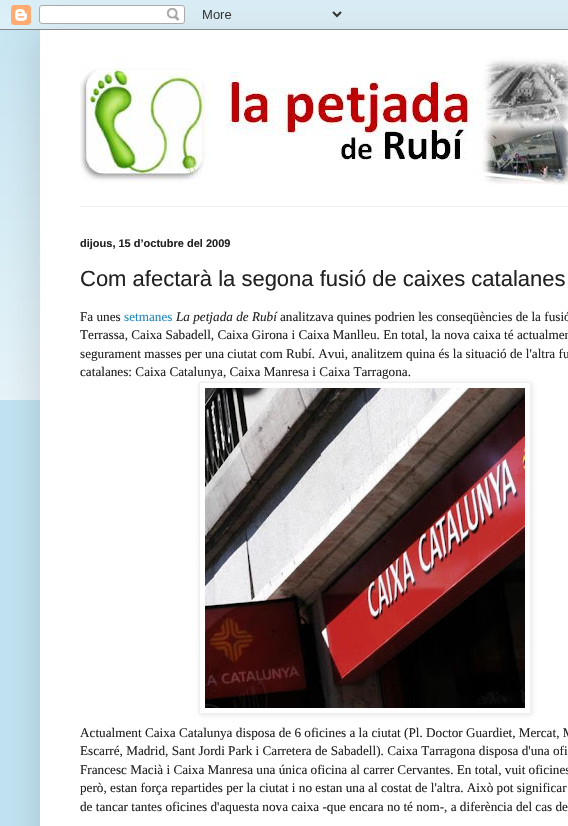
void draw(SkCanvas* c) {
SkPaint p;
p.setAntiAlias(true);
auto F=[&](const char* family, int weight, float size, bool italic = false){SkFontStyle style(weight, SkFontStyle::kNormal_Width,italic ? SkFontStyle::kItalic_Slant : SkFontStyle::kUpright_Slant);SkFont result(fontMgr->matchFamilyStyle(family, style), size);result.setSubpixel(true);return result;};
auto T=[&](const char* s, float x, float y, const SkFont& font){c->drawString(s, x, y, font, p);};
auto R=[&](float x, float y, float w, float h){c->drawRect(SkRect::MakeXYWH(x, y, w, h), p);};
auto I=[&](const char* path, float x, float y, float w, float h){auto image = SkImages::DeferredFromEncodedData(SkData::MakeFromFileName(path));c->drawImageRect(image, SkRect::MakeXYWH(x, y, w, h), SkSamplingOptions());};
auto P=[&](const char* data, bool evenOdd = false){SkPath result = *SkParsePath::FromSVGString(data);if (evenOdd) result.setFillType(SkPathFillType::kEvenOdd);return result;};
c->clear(0xffc2e4f2);
I("2.png",0,10,568,390);
p.setColor(0x26000000);
p.setMaskFilter(SkMaskFilter::MakeBlur(kNormal_SkBlurStyle, 20));
c->drawRect(SkRect::MakeXYWH(40,30,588,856),p);
p.setMaskFilter(nullptr);
I("1.png",0,0,568,30);
p.setColor(0xffffffff);
R(40,30,528,796);
I("3.png",80,56,488,129);
p.setColor(0xffeeeeee);
R(80,206,488,1);
auto f1 = F("Liberation Sans",700,11);
p.setColor(0xff222222);
T("dijous, 15 d’octubre del 2009",80,247,f1);
auto f2 = F("Liberation Sans",400,22);
T("Com afectarà la segona fusió de caixes catalanes",80,286,f2);
auto f3 = F("Liberation Serif",400,13.2);
T("Fa unes",80,321,f3);
p.setColor(0xff2288bb);
T("setmanes",124,321,f3);
auto f4 = F("Liberation Serif",400,13.2,true);
p.setColor(0xff222222);
T("La petjada de Rubí",176,321,f4);
T("analitzava quines podrien les conseqüències de la fusió",280,321,f3);
T("Terrassa, Caixa Sabadell, Caixa Girona i Caixa Manlleu. En total, la nova caixa té actualmen",80,339,f3);
T("segurament masses per una ciutat com Rubí. Avui, analitzem quina és la situació de l'altra fu",80,358,f3);
T("catalanes: Caixa Catalunya, Caixa Manresa i Caixa Tarragona.",80,376,f3);
c->save();
c->clipPath(P("M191 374h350v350h-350zm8 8h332v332h-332z",true),true);
p.setColor(0x1a000000);
p.setMaskFilter(SkMaskFilter::MakeBlur(kNormal_SkBlurStyle, 2.5));
c->drawRect(SkRect::MakeXYWH(200,383,332,332),p);
p.setMaskFilter(nullptr);
c->restore();
p.setStroke(true);
p.setStrokeWidth(1);
p.setColor(0xffeeeeee);
c->drawRect(SkRect::MakeXYWH(199.5,382.5,331,331),p);
I("4.png",205,388,320,320);
p.setStroke(false);
p.setColor(0xff222222);
T("Actualment Caixa Catalunya disposa de 6 oficines a la ciutat (Pl. Doctor Guardiet, Mercat, M",80,737,f3);
T("Escarré, Madrid, Sant Jordi Park i Carretera de Sabadell). Caixa Tarragona disposa d'una ofi",80,755,f3);
T("Francesc Macià i Caixa Manresa una única oficina al carrer Cervantes. En total, vuit oficines",80,774,f3);
T("però, estan força repartides per la ciutat i no estan una al costat de l'altra. Això pot significar",80,792,f3);
T("de tancar tantes oficines d'aquesta nova caixa -que encara no té nom-, a diferència del cas de",80,811,f3);
}
